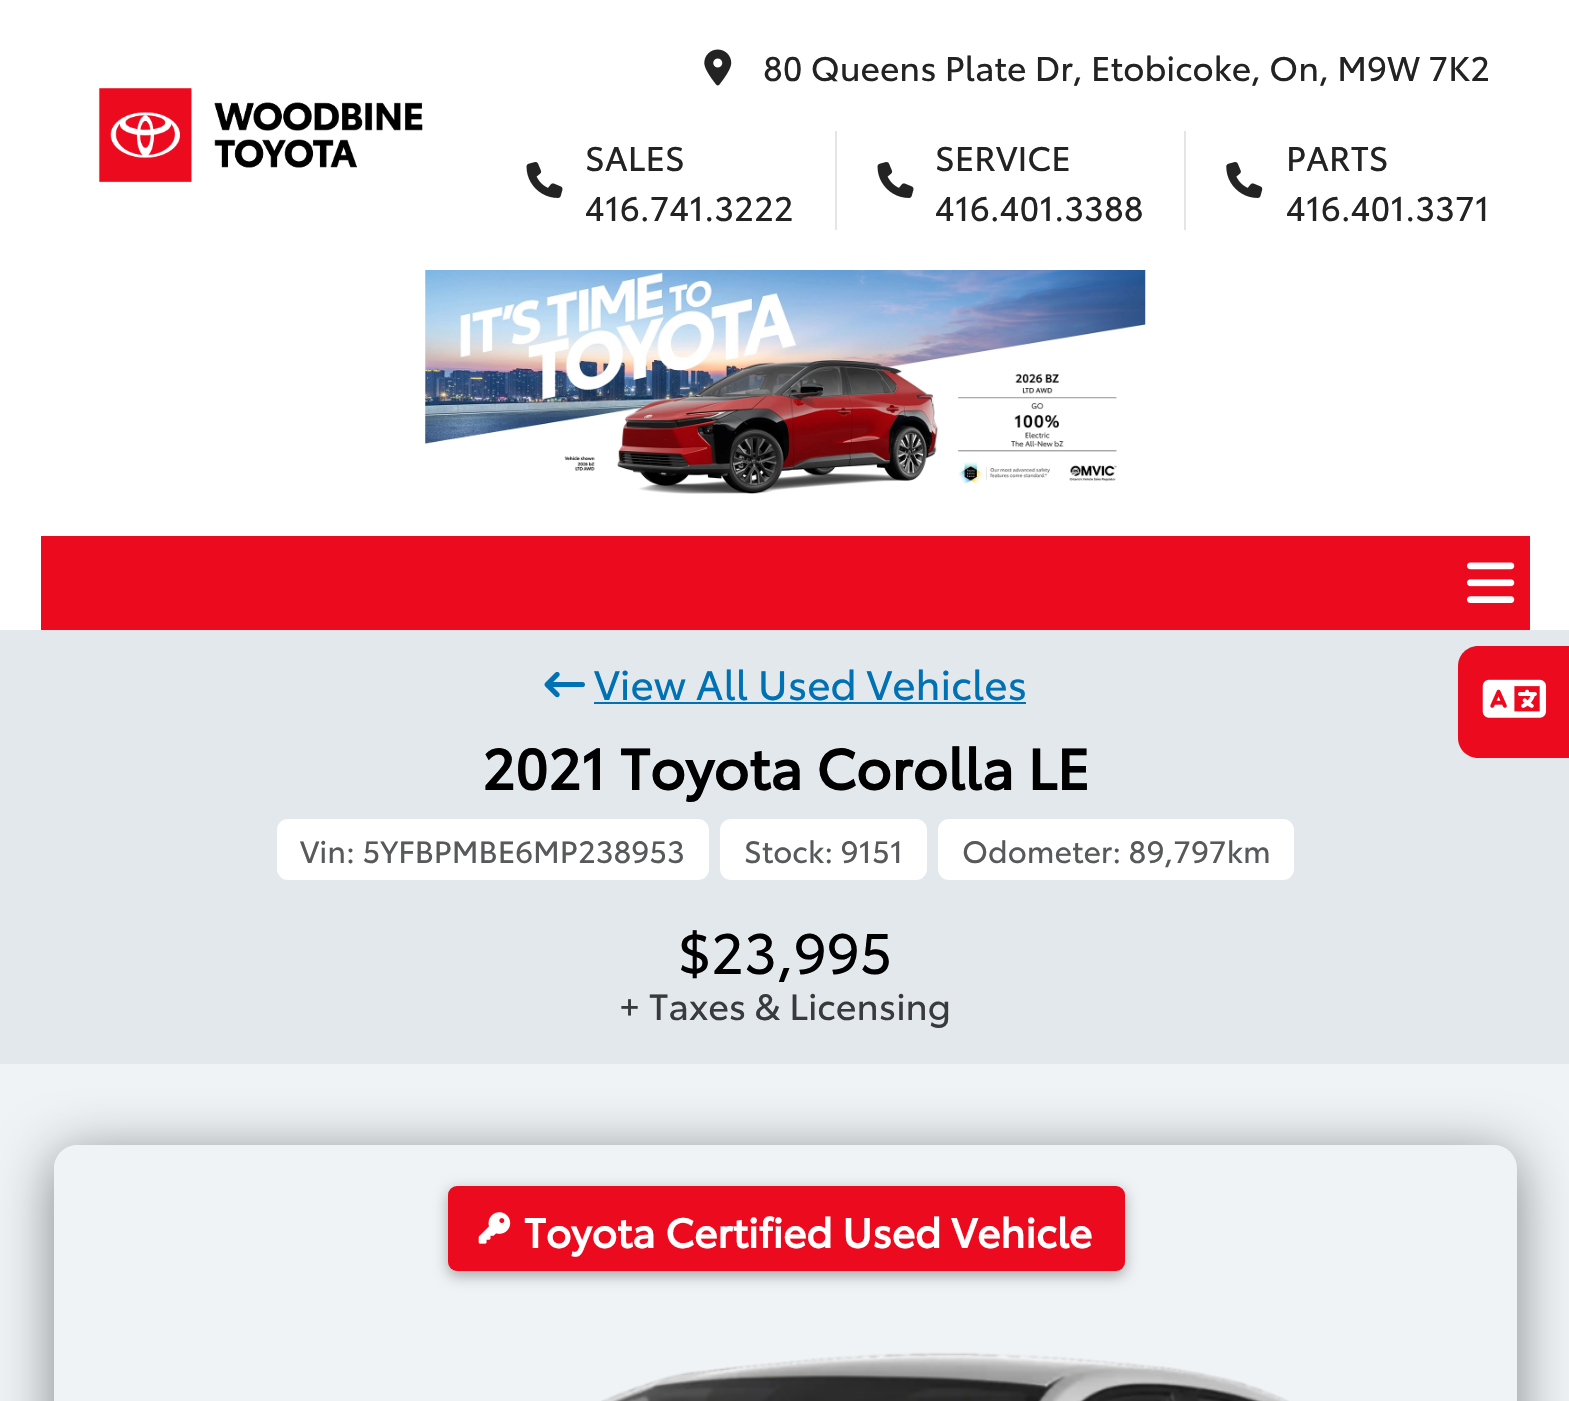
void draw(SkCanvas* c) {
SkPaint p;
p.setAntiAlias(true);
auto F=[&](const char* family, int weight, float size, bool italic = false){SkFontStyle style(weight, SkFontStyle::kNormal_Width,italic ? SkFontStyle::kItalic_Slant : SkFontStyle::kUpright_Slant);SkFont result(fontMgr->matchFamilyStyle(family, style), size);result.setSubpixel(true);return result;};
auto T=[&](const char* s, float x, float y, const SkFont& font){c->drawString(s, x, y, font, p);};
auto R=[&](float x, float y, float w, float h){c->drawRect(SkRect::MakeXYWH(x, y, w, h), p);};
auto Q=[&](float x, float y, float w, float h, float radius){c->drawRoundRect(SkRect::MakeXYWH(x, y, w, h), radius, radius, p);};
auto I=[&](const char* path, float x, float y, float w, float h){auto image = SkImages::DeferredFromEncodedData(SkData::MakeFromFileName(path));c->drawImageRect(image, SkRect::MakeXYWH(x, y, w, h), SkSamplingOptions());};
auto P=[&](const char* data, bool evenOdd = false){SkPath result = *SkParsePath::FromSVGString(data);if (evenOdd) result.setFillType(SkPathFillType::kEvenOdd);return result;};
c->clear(0xffffffff);
I("1.png",98,88,325,95);
I("2.png",704,49,28,37);
auto f1 = F("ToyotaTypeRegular",400,33.75);
p.setColor(0xff232323);
T("80 Queens Plate Dr, Etobicoke, On, M9W 7K2",763,81,f1);
p.setColor(0xffe6e5e5);
R(835,131,2,99);
I("3.png",526,162,37,36);
p.setColor(0xff232323);
T("SALES",585,171,f1);
T("416.741.3222",585,221,f1);
p.setColor(0xffe6e5e5);
R(1184,131,2,99);
I("3.png",877,162,37,36);
p.setColor(0xff232323);
T("SERVICE",935,171,f1);
T("416.401.3388",935,221,f1);
I("4.png",1226,162,37,36);
T("PARTS",1286,171,f1);
T("416.401.3371",1286,221,f1);
I("5.png",425,270,721,224);
p.setColor(0xffeb0a1e);
R(41,536,1489,94);
I("6.png",1467,562,48,41);
p.setColor(0xffe3e8ed);
R(0,630,1569,434);
I("7.png",544,671,41,27);
auto f2 = F("ToyotaTypeRegular",400,40.5);
p.setColor(0xff0071b3);
T("View All Used Vehicles",594,700,f2);
R(594,702,432,2);
auto f3 = F("ToyotaTypeRegular",700,56.25);
p.setColor(0xff000000);
T("2021 Toyota Corolla LE",482,790,f3);
p.setColor(0xffffffff);
Q(277,819,432,61,11);
auto f4 = F("ToyotaTypeRegular",400,30.4);
p.setColor(0xff58595b);
T("Vin: 5YFBPMBE6MP238953",300,863,f4);
p.setColor(0xffffffff);
Q(720,819,207,61,11);
p.setColor(0xff58595b);
T("Stock: 9151",744,863,f4);
p.setColor(0xffffffff);
Q(938,819,356,61,11);
p.setColor(0xff58595b);
T("Odometer: 89,797km",962,863,f4);
auto f5 = F("ToyotaTypeRegular",400,56.25);
p.setColor(0xff000000);
T("$23,995",678,974,f5);
auto f6 = F("ToyotaTypeRegular",400,36);
p.setColor(0xff393a3b);
T("+ Taxes & Licensing",619,1020,f6);
p.setColor(0xffeff3f6);
R(0,1064,1569,337);
c->save();
c->clipPath(P("M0 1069h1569v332h-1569zm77 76h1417c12.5 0 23 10.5 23 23v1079c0 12.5-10.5 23-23 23h-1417c-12.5 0-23-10.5-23-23v-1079c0-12.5 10.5-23 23-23z",true),true);
p.setColor(0x73000000);
p.setMaskFilter(SkMaskFilter::MakeBlur(kNormal_SkBlurStyle, 28));
c->drawRoundRect(SkRect::MakeXYWH(54,1154,1463,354),23,23,p);
p.setMaskFilter(nullptr);
c->restore();
I("8.png",601,1352,688,49);
p.setColor(0x4d000000);
p.setMaskFilter(SkMaskFilter::MakeBlur(kNormal_SkBlurStyle, 7));
c->drawRoundRect(SkRect::MakeXYWH(448,1190,677,86),9,9,p);
p.setMaskFilter(nullptr);
p.setColor(0xffeb0a1e);
Q(448,1186,677,85,9);
I("9.png",478,1212,33,32);
auto f7 = F("ToyotaTypeRegular",700,40.5);
p.setColor(0xffffffff);
T("Toyota Certified Used Vehicle",524,1248,f7);
p.setColor(0xffeb0a1e);
c->drawPath(P("M1478 646h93v112h-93c-11 0-20-9-20-20v-72c0-11 9-20 20-20z"),p);
I("10.png",1482,679,65,39);
}
